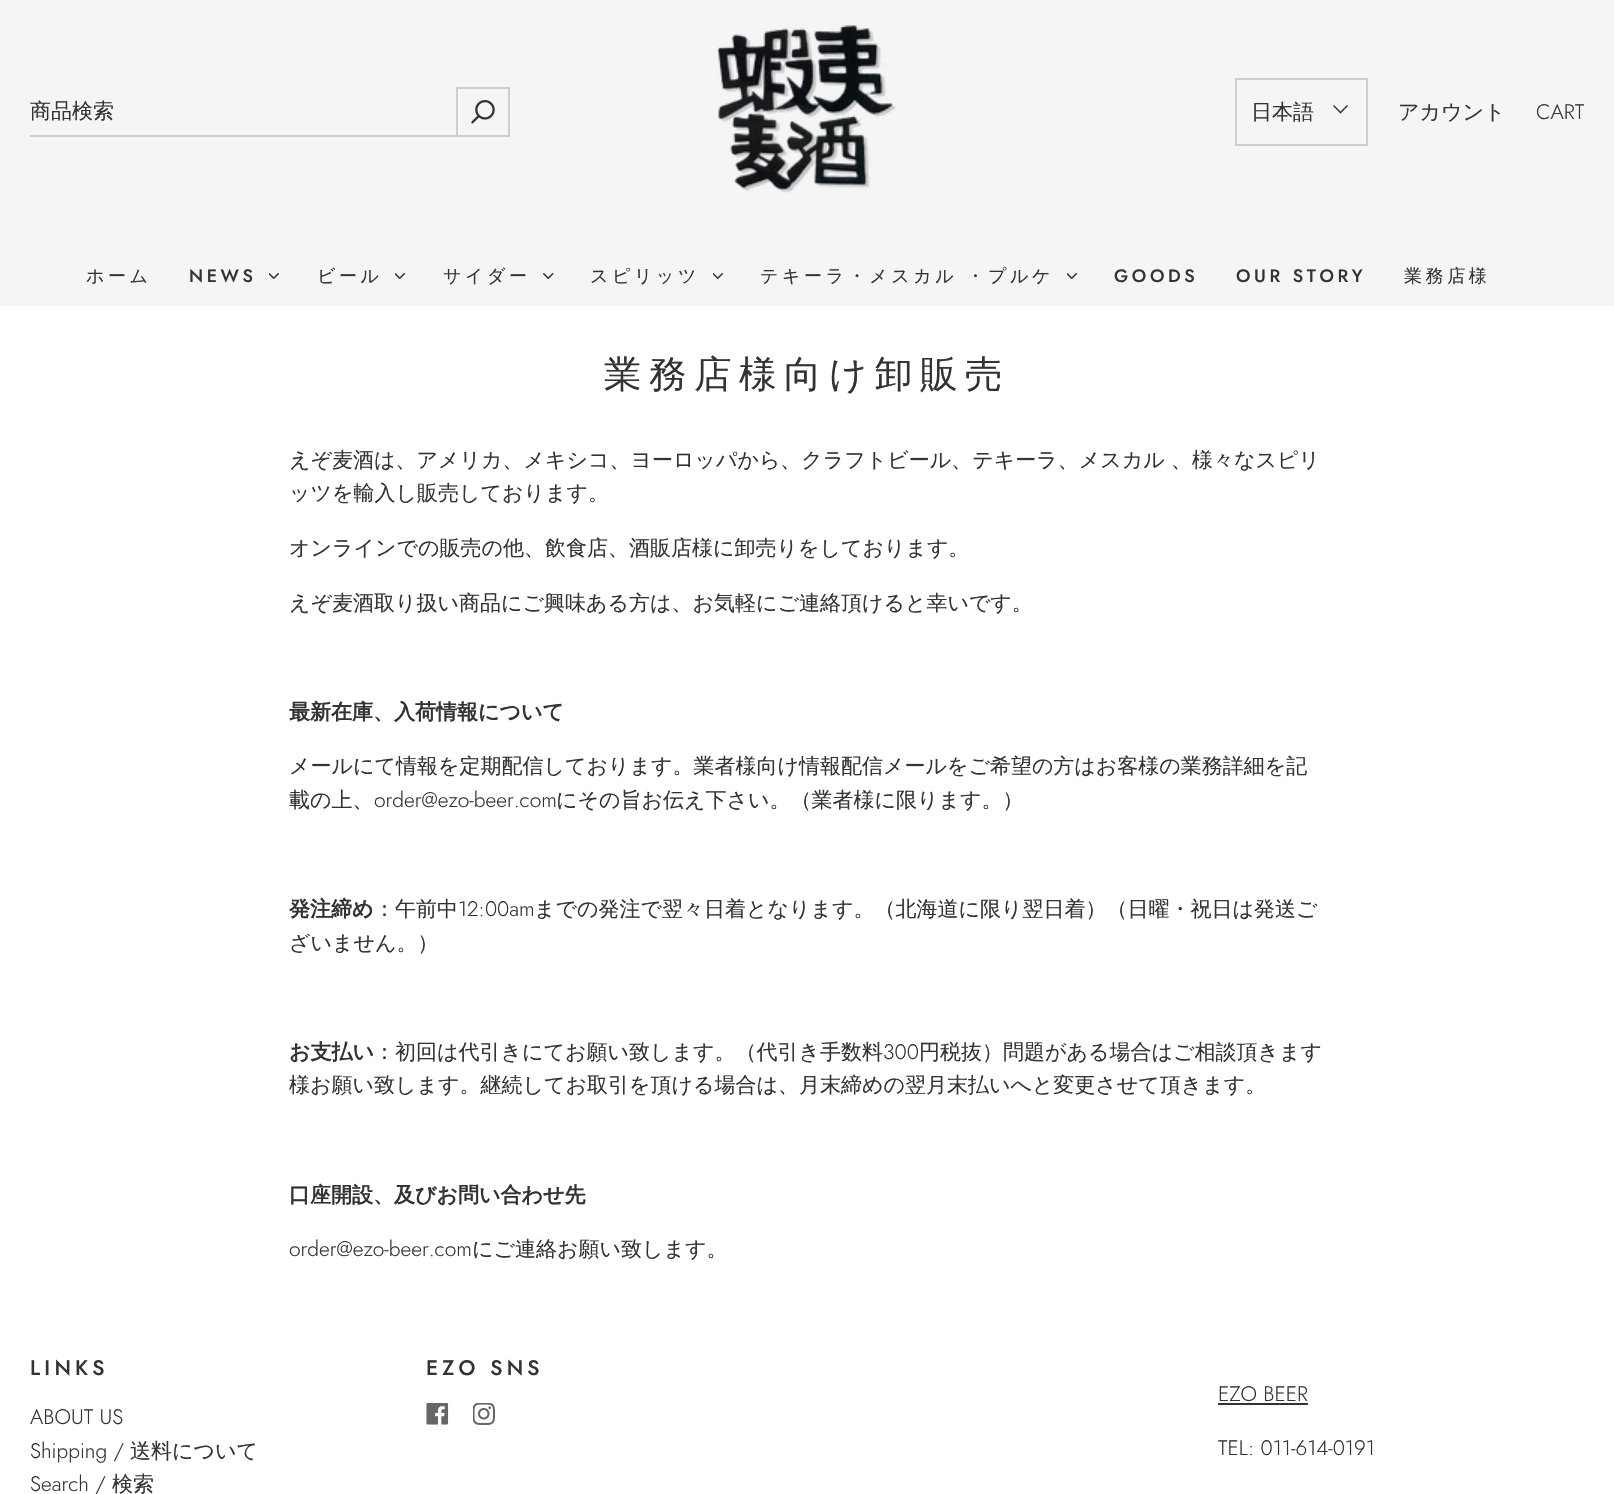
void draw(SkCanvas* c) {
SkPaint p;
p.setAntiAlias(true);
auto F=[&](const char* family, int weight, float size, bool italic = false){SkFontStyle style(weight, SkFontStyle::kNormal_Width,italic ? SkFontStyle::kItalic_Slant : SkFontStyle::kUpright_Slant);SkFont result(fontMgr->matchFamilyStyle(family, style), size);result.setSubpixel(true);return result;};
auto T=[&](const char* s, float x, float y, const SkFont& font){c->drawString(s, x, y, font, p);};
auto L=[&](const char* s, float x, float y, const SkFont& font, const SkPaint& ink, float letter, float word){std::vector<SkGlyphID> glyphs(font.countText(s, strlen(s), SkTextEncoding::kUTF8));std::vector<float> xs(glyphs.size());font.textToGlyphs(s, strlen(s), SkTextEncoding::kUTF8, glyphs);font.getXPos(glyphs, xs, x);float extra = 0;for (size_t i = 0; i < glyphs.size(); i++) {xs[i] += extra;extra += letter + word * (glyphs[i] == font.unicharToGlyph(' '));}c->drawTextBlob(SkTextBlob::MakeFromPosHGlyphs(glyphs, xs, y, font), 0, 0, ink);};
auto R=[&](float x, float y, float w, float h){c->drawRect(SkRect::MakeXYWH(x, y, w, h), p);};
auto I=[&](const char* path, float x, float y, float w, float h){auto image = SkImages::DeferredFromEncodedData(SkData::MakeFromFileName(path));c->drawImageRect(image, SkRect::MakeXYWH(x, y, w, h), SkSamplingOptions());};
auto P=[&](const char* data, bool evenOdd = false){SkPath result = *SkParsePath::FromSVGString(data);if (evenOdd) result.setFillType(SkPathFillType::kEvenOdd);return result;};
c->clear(0xffffffff);
p.setColor(0xfff5f5f5);
R(0,0,1614,306);
p.setColor(0xffcecece);
R(30,135,426,2);
auto f1 = F("WenQuanYi Zen Hei",500,21);
p.setColor(0xff333333);
T("商品検索",30,118,f1);
p.setStroke(true);
p.setStrokeWidth(2);
p.setColor(0xffcecece);
c->drawRect(SkRect::MakeXYWH(457,88,52,48),p);
I("1.png",471,100,24,24);
I("2.png",717,25,179,168);
c->drawRect(SkRect::MakeXYWH(1236,79,131,66),p);
p.setStroke(false);
p.setColor(0xff333333);
T("日本語",1251,119,f1);
c->drawPath(P("M1347 105l1 1l-7.5 7.5l-1-1z"),p);
c->drawPath(P("M1334 105l7.5 7.5l-1 1l-7.5-7.5z"),p);
T("アカウント",1398,119,f1);
auto f2 = F("Jost",300,21);
T("CART",1536,119,f2);
auto f3 = F("WenQuanYi Zen Hei",500,18);
L("ホーム",86,282,f3,p,3.6,0);
auto f4 = F("Jost",500,18);
L("NEWS",189,282,f4,p,3.6,0);
I("3.png",269,273,10,6);
L("ビール",317,282,f3,p,3.6,0);
I("3.png",395,273,10,6);
L("サイダー",443,282,f3,p,3.6,0);
I("4.png",543,273,11,6);
L("スピリッツ",590,282,f3,p,3.6,0);
I("3.png",713,273,10,6);
L("テキーラ・メスカル ・プルケ",760,282,f3,p,3.6,0);
I("3.png",1067,273,10,6);
L("GOODS",1114,282,f4,p,3.6,0);
L("OUR STORY",1236,282,f4,p,3.6,0);
L("業務店様",1404,282,f3,p,3.6,0);
auto f5 = F("WenQuanYi Zen Hei",500,37.5);
L("業務店様向け卸販売",604,387,f5,p,7.5,0);
T("えぞ麦酒は、アメリカ、メキシコ、ヨーロッパから、クラフトビール、テキーラ、メスカル 、様々なスピリ",289,467,f1);
T("ッツを輸入し販売しております。",289,500,f1);
T("オンラインでの販売の他、飲食店、酒販店様に卸売りをしております。",289,555,f1);
T("えぞ麦酒取り扱い商品にご興味ある方は、お気軽にご連絡頂けると幸いです。",289,610,f1);
auto f6 = F("WenQuanYi Zen Hei",700,21);
T("最新在庫、入荷情報について",289,719,f6);
T("メールにて情報を定期配信しております。業者様向け情報配信メールをご希望の方はお客様の業務詳細を記",289,773,f1);
T("載の上、",289,807,f1);
T("order@ezo-beer.com",374,807,f2);
T("にその旨お伝え下さい。（業者様に限ります。）",556,807,f1);
T("発注締め",289,916,f6);
T("：午前中",374,916,f1);
T("12:00am",458,916,f2);
T("までの発注で翌々日着となります。（北海道に限り翌日着）（日曜・祝日は発送ご",534,916,f1);
T("ざいません。）",289,950,f1);
T("お支払い",289,1059,f6);
T("：初回は代引きにてお願い致します。（代引き手数料",374,1059,f1);
T("300",883,1059,f2);
T("円税抜）問題がある場合はご相談頂きます",919,1059,f1);
T("様お願い致します。継続してお取引を頂ける場合は、月末締めの翌月末払いへと変更させて頂きます。",289,1092,f1);
T("口座開設、及びお問い合わせ先",289,1202,f6);
T("order@ezo-beer.com",289,1256,f2);
T("にご連絡お願い致します。",472,1256,f1);
auto f7 = F("Jost",500,21);
L("LINKS",30,1375,f7,p,4.25,0);
T("ABOUT US",30,1424,f2);
T("Shipping /",30,1458,f2);
T("送料について",130,1458,f1);
T("Search /",30,1491,f2);
T("検索",112,1491,f1);
L("EZO SNS",426,1375,f7,p,4.25,0);
I("5.png",426,1403,23,22);
I("6.png",473,1403,22,22);
T("EZO BEER",1218,1401,f2);
R(1218,1403,90,2);
T("TEL: 011-614-0191",1218,1455,f2);
}
